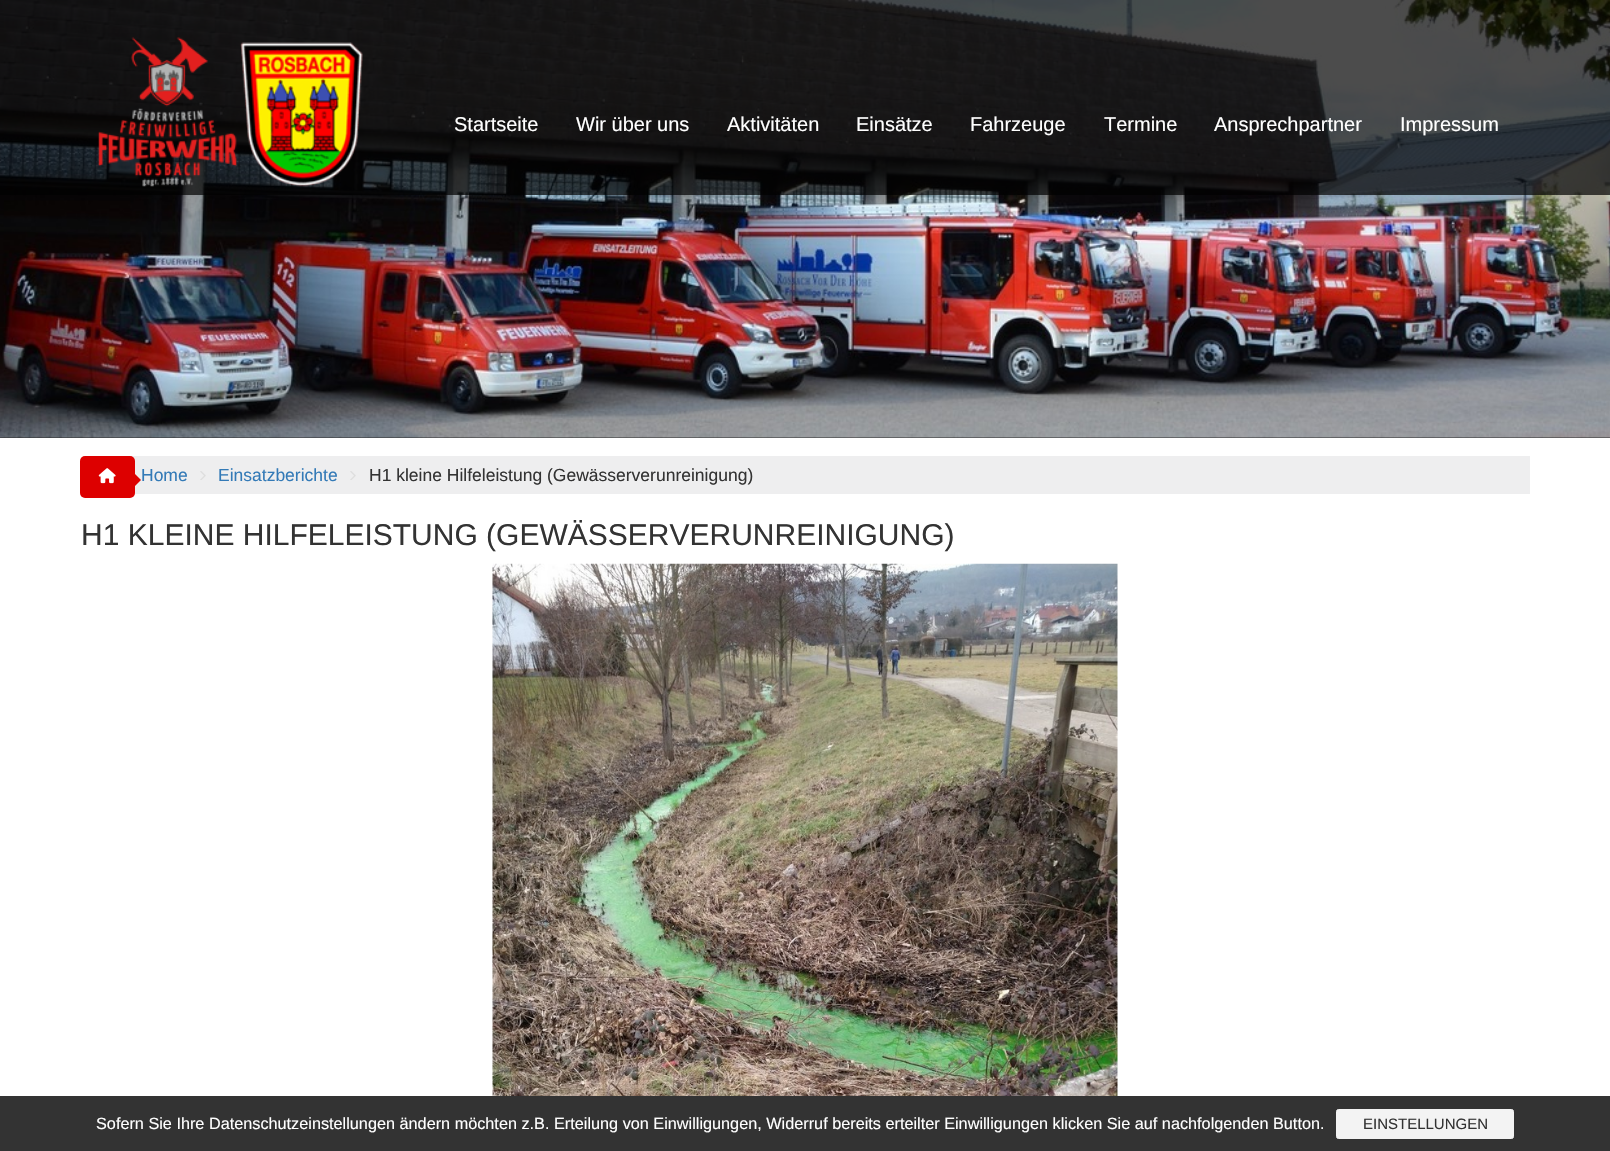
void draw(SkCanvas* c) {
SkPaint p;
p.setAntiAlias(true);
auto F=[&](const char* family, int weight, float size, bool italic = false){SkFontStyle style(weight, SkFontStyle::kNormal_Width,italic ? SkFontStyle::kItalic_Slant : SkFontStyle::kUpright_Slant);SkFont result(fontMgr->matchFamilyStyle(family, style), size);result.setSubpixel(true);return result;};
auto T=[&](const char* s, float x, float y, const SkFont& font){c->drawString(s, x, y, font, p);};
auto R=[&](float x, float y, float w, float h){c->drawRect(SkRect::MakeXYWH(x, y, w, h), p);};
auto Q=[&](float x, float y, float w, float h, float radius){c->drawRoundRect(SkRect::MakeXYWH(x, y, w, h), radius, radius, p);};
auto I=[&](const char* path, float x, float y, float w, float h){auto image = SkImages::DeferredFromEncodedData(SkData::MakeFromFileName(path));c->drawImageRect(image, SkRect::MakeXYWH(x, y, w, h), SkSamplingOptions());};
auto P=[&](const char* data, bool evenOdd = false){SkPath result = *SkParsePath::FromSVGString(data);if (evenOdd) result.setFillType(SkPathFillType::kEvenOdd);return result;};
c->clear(0xffffffff);
p.setColor(0xff2d2d2d);
R(0,437,1610,1);
I("1.png",0,0,1610,438);
p.setColor(0xb3000000);
R(0,0,1610,195);
I("2.png",98,37,265,150);
auto f1 = F("Liberation Sans",400,20);
p.setColor(0xffffffff);
T("Startseite",454,131,f1);
T("Wir über uns",576,131,f1);
T("Aktivitäten",727,131,f1);
T("Einsätze",856,131,f1);
T("Fahrzeuge",970,131,f1);
T("Termine",1104,131,f1);
T("Ansprechpartner",1214,131,f1);
T("Impressum",1400,131,f1);
p.setColor(0xffeeeeef);
R(130,456,1400,38);
p.setColor(0xffdd0000);
Q(80,456,55,42,5);
I("3.png",98,468,18,16);
c->drawPath(P("M135 486v-12l6 6z"),p);
auto f2 = F("Liberation Sans",400,17.5);
p.setColor(0xff337ab7);
T("Home",141,481,f2);
I("4.png",200,471,6,9);
T("Einsatzberichte",218,481,f2);
I("4.png",350,471,6,9);
p.setColor(0xff333333);
T("H1 kleine Hilfeleistung (Gewässerverunreinigung)",369,481,f2);
auto f3 = F("Liberation Sans",400,30);
T("H1 KLEINE HILFELEISTUNG (GEWÄSSERVERUNREINIGUNG)",81,545,f3);
I("5.png",492,563,626,533);
R(0,1096,1610,55);
auto f4 = F("Liberation Sans",400,16.25);
p.setColor(0xffffffff);
T("Sofern Sie Ihre Datenschutzeinstellungen ändern möchten z.B. Erteilung von Einwilligungen, Widerruf bereits erteilter Einwilligungen klicken Sie auf nachfolgenden Button.",96,1129,f4);
p.setColor(0xfff3f3f3);
c->drawRoundRect(SkRect::MakeXYWH(1336.5,1109.5,177,29),2,2,p);
p.setStroke(true);
p.setStrokeWidth(1);
c->drawRoundRect(SkRect::MakeXYWH(1336.5,1109.5,177,29),2,2,p);
auto f5 = F("Liberation Sans",400,15);
p.setStroke(false);
p.setColor(0xff333333);
T("EINSTELLUNGEN",1363,1129,f5);
}
